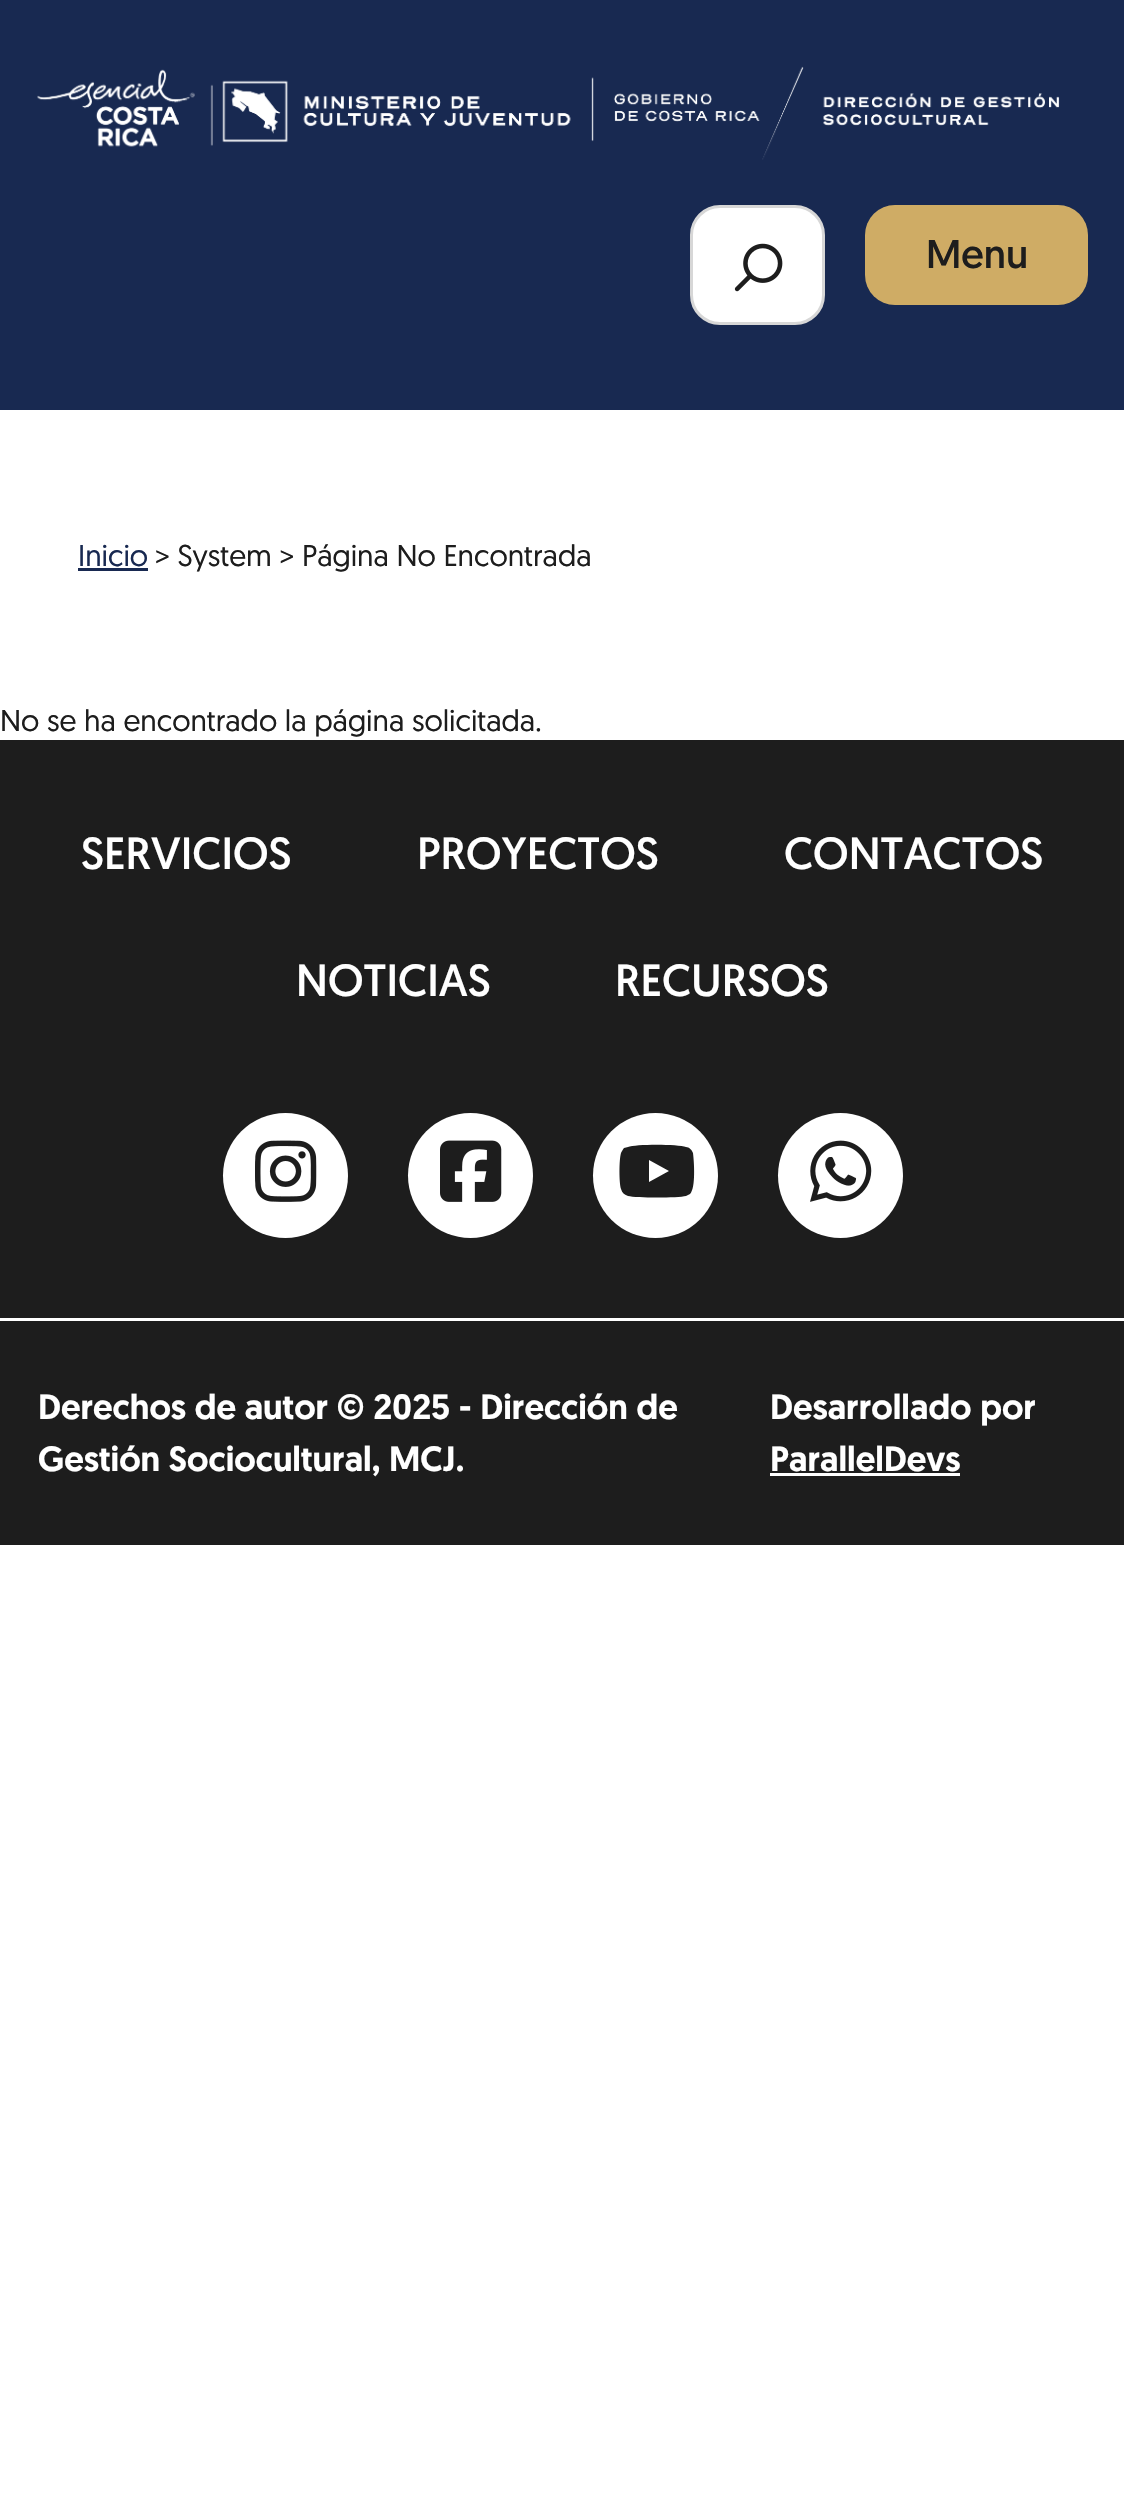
void draw(SkCanvas* c) {
SkPaint p;
p.setAntiAlias(true);
auto F=[&](const char* family, int weight, float size, bool italic = false){SkFontStyle style(weight, SkFontStyle::kNormal_Width,italic ? SkFontStyle::kItalic_Slant : SkFontStyle::kUpright_Slant);SkFont result(fontMgr->matchFamilyStyle(family, style), size);result.setSubpixel(true);return result;};
auto T=[&](const char* s, float x, float y, const SkFont& font){c->drawString(s, x, y, font, p);};
auto R=[&](float x, float y, float w, float h){c->drawRect(SkRect::MakeXYWH(x, y, w, h), p);};
auto Q=[&](float x, float y, float w, float h, float radius){c->drawRoundRect(SkRect::MakeXYWH(x, y, w, h), radius, radius, p);};
auto I=[&](const char* path, float x, float y, float w, float h){auto image = SkImages::DeferredFromEncodedData(SkData::MakeFromFileName(path));c->drawImageRect(image, SkRect::MakeXYWH(x, y, w, h), SkSamplingOptions());};
auto P=[&](const char* data, bool evenOdd = false){SkPath result = *SkParsePath::FromSVGString(data);if (evenOdd) result.setFillType(SkPathFillType::kEvenOdd);return result;};
c->clear(0xffffffff);
p.setColor(0xff182951);
R(0,0,1124,410);
I("1.png",37,66,1023,94);
p.setColor(0xffffffff);
c->drawRoundRect(SkRect::MakeXYWH(691.5,206.5,132,117),28.5,28.5,p);
p.setStroke(true);
p.setStrokeWidth(3);
p.setColor(0xffd7d7d7);
c->drawRoundRect(SkRect::MakeXYWH(691.5,206.5,132,117),28.5,28.5,p);
I("2.png",734,243,49,49);
p.setStroke(false);
p.setColor(0xffcfac65);
Q(865,205,223,100,30);
auto f1 = F("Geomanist",400,40);
p.setColor(0xff1d1d1d);
T("Menu",926,268,f1);
auto f2 = F("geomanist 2",400,30);
p.setColor(0xff182951);
T("Inicio",78,566,f2);
R(78,568,70,3);
p.setColor(0xff1d1d1d);
T("> System > Página No Encontrada",155,566,f2);
T("No se ha encontrado la página solicitada.",0,731,f2);
R(0,740,1124,805);
auto f3 = F("Geomanist",400,45);
p.setColor(0xffffffff);
T("SERVICIOS",81,869,f3);
T("PROYECTOS",417,869,f3);
T("CONTACTOS",784,869,f3);
T("NOTICIAS",296,996,f3);
T("RECURSOS",615,996,f3);
c->drawCircle(285.5,1175.5,62.5,p);
I("3.png",255,1140,62,62);
c->drawCircle(470.5,1175.5,62.5,p);
I("4.png",440,1140,62,62);
c->drawCircle(655.5,1175.5,62.5,p);
p.setColor(0xff1d1d1d);
c->drawPath(P("M693 1153c-1-3-4-6-7-6c-8-3-51-3-58 0l-4 1c-1 1-2 3-3 5c-2 7-2 29 0 36c1 4 4 6 7 7c8 2 50 2 58 0l4-2c6-6 4-33 3-41zm-44 29v-22v22v-22l20 11z"),p);
p.setColor(0xffffffff);
c->drawCircle(840.5,1175.5,62.5,p);
I("5.png",810,1140,62,62);
R(0,1318,1124,3);
auto f4 = F("Geomanist",500,35);
T("Derechos de autor © 2025 - Dirección de",38,1419,f4);
T("Gestión Sociocultural, MCJ.",38,1471,f4);
T("Desarrollado por",770,1419,f4);
T("ParallelDevs",770,1471,f4);
R(770,1473,190,3);
}
